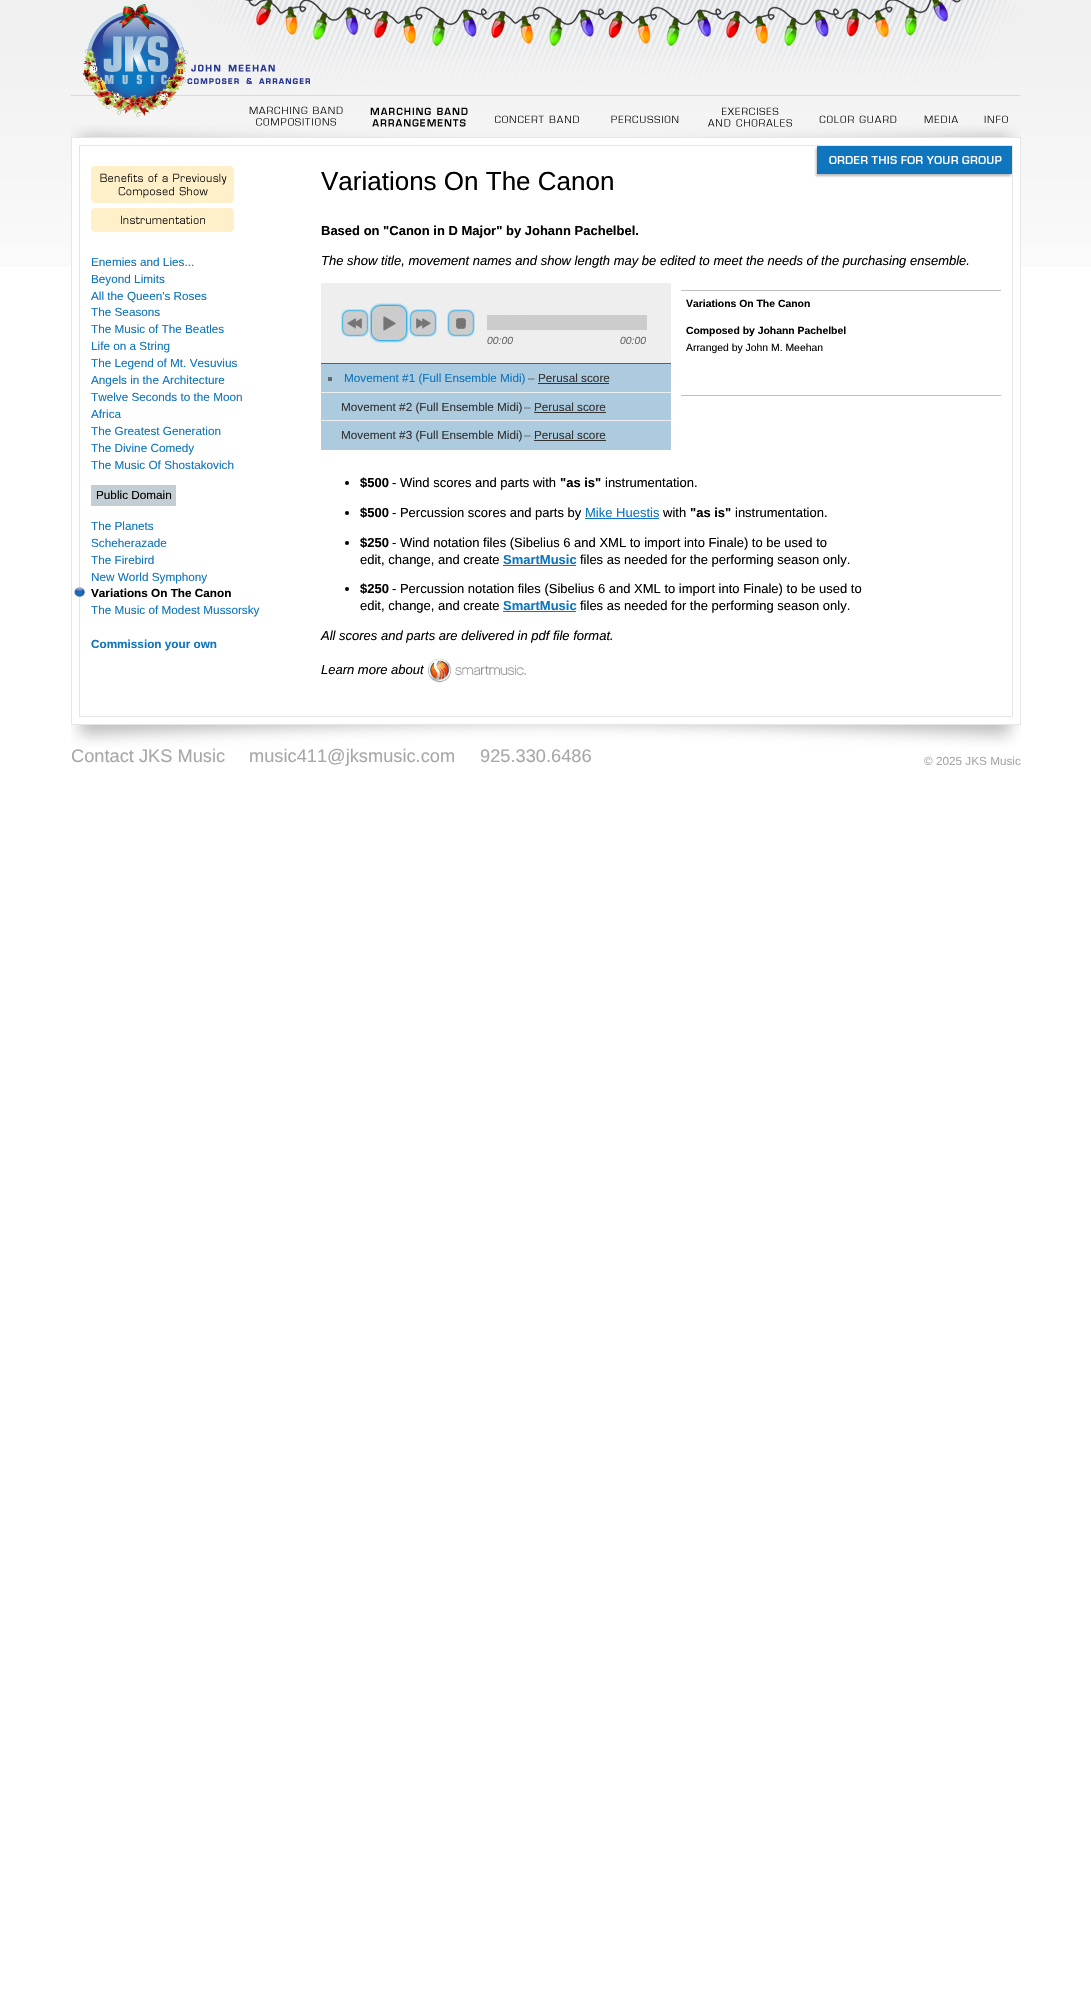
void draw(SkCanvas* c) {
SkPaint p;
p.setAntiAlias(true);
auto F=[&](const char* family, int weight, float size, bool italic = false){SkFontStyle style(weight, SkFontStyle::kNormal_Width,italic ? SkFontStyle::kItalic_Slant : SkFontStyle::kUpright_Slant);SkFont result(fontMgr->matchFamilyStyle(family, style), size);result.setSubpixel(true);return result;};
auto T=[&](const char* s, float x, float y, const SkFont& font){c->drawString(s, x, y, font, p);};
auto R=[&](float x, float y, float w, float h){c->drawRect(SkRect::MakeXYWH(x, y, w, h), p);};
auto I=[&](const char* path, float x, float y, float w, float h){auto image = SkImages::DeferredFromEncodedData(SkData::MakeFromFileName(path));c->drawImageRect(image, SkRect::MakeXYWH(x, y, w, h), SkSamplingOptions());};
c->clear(0xffffffff);
I("1.png",0,0,1091,267);
I("2.png",71,0,950,117);
I("12.png",71,125,950,21);
I("3.png",249,106,94,20);
I("4.png",370,107,98,20);
I("5.png",495,115,84,8);
I("6.png",611,115,68,8);
I("7.png",708,107,84,20);
I("8.png",819,115,78,8);
I("9.png",924,115,34,8);
I("10.png",984,115,24,8);
I("11.png",71,146,950,570);
I("13.png",91,166,143,37);
I("14.png",91,208,143,24);
auto f1 = F("Liberation Sans",400,11.75);
p.setColor(0xff0f75bc);
T("Enemies and Lies...",91,266,f1);
T("Beyond Limits",91,283,f1);
T("All the Queen's Roses",91,300,f1);
T("The Seasons",91,316,f1);
T("The Music of The Beatles",91,333,f1);
T("Life on a String",91,350,f1);
T("The Legend of Mt. Vesuvius",91,367,f1);
T("Angels in the Architecture",91,384,f1);
T("Twelve Seconds to the Moon",91,401,f1);
T("Africa",91,418,f1);
T("The Greatest Generation",91,435,f1);
T("The Divine Comedy",91,452,f1);
T("The Music Of Shostakovich",91,469,f1);
p.setColor(0xffc3ced4);
R(91,485,85,21);
p.setColor(0xff000000);
T("Public Domain",96,499,f1);
p.setColor(0xff0f75bc);
T("The Planets",91,530,f1);
T("Scheherazade",91,547,f1);
T("The Firebird",91,564,f1);
T("New World Symphony",91,581,f1);
I("15.png",74,587,11,10);
auto f2 = F("Liberation Sans",700,11.75);
p.setColor(0xff000000);
T("Variations On The Canon",91,597,f2);
p.setColor(0xff0f75bc);
T("The Music of Modest Mussorsky",91,614,f1);
T("Commission your own",91,648,f2);
I("16.png",814,146,198,32);
auto f3 = F("Liberation Sans",400,26);
p.setColor(0xff000000);
T("Variations On The Canon",321,190,f3);
auto f4 = F("Liberation Sans",700,13);
T("Based on \"Canon in D Major\" by Johann Pachelbel.",321,235,f4);
auto f5 = F("Liberation Sans",400,13,true);
T("The show title, movement names and show length may be edited to meet the needs of the purchasing ensemble.",321,265,f5);
p.setColor(0xffc0c0c0);
R(681,290,320,1);
R(681,395,320,1);
auto f6 = F("Liberation Sans",700,10.4);
p.setColor(0xff000000);
T("Variations On The Canon",686,307,f6);
T("Composed by Johann Pachelbel",686,334,f6);
auto f7 = F("Liberation Sans",400,10.4);
T("Arranged by John M. Meehan",686,351,f7);
p.setColor(0xffeeeeee);
R(321,283,350,80);
I("17.png",341,309,28,28);
I("18.png",369,303,40,40);
I("19.png",409,309,28,28);
I("20.png",447,309,28,28);
I("21.png",487,315,160,15);
auto f8 = F("Liberation Sans",400,10.4,true);
p.setColor(0xff666666);
T("00:00",487,344,f8);
T("00:00",620,344,f8);
p.setColor(0xffadcbdf);
R(321,364,350,86);
p.setColor(0xff0f75bc);
R(321,363,350,1);
p.setColor(0xffeeeeee);
R(321,392,350,1);
p.setColor(0xff666666);
R(328,377,4,4);
p.setColor(0xff0f75bc);
T("Movement #1 (Full Ensemble Midi)",344,382,f1);
p.setColor(0xff666666);
T("–",528,382,f1);
p.setColor(0xff333333);
T("Perusal score",538,382,f1);
R(538,383,71,1);
p.setColor(0xffeeeeee);
R(321,420,350,1);
p.setColor(0xff333333);
T("Movement #2 (Full Ensemble Midi)",341,411,f1);
p.setColor(0xff666666);
T("–",524,411,f1);
p.setColor(0xff333333);
T("Perusal score",534,411,f1);
R(534,412,72,1);
T("Movement #3 (Full Ensemble Midi)",341,439,f1);
p.setColor(0xff666666);
T("–",524,439,f1);
p.setColor(0xff333333);
T("Perusal score",534,439,f1);
R(534,440,72,1);
p.setColor(0xff000000);
c->drawCircle(347,483,2,p);
T("$500",360,487,f4);
auto f9 = F("Liberation Sans",400,13);
T("- Wind scores and parts with",392,487,f9);
T("\"as is\"",560,487,f4);
T("instrumentation.",605,487,f9);
c->drawCircle(347,513,2,p);
T("$500",360,517,f4);
T("- Percussion scores and parts by",392,517,f9);
p.setColor(0xff0f75bc);
T("Mike Huestis",585,517,f9);
R(585,518,74,1);
p.setColor(0xff000000);
T("with",663,517,f9);
T("\"as is\"",690,517,f4);
T("instrumentation.",735,517,f9);
c->drawCircle(347,543,2,p);
T("$250",360,547,f4);
T("- Wind notation files (Sibelius 6 and XML to import into Finale) to be used to",392,547,f9);
T("edit, change, and create",360,564,f9);
p.setColor(0xff0f75bc);
T("SmartMusic",503,564,f4);
R(503,565,73,1);
p.setColor(0xff000000);
T("files as needed for the performing season only.",580,564,f9);
c->drawCircle(347,589,2,p);
T("$250",360,593,f4);
T("- Percussion notation files (Sibelius 6 and XML to import into Finale) to be used to",392,593,f9);
T("edit, change, and create",360,610,f9);
p.setColor(0xff0f75bc);
T("SmartMusic",503,610,f4);
R(503,611,73,1);
p.setColor(0xff000000);
T("files as needed for the performing season only.",580,610,f9);
T("All scores and parts are delivered in pdf file format.",321,640,f5);
T("Learn more about",321,674,f5);
I("22.png",428,658,98,25);
I("23.png",71,716,950,32);
auto f10 = F("Liberation Sans",400,18.25);
p.setColor(0xffa7a7a7);
T("Contact JKS Music",71,762,f10);
T("music411@jksmusic.com",249,762,f10);
T("925.330.6486",480,762,f10);
T("© 2025 JKS Music",924,765,f1);
}
